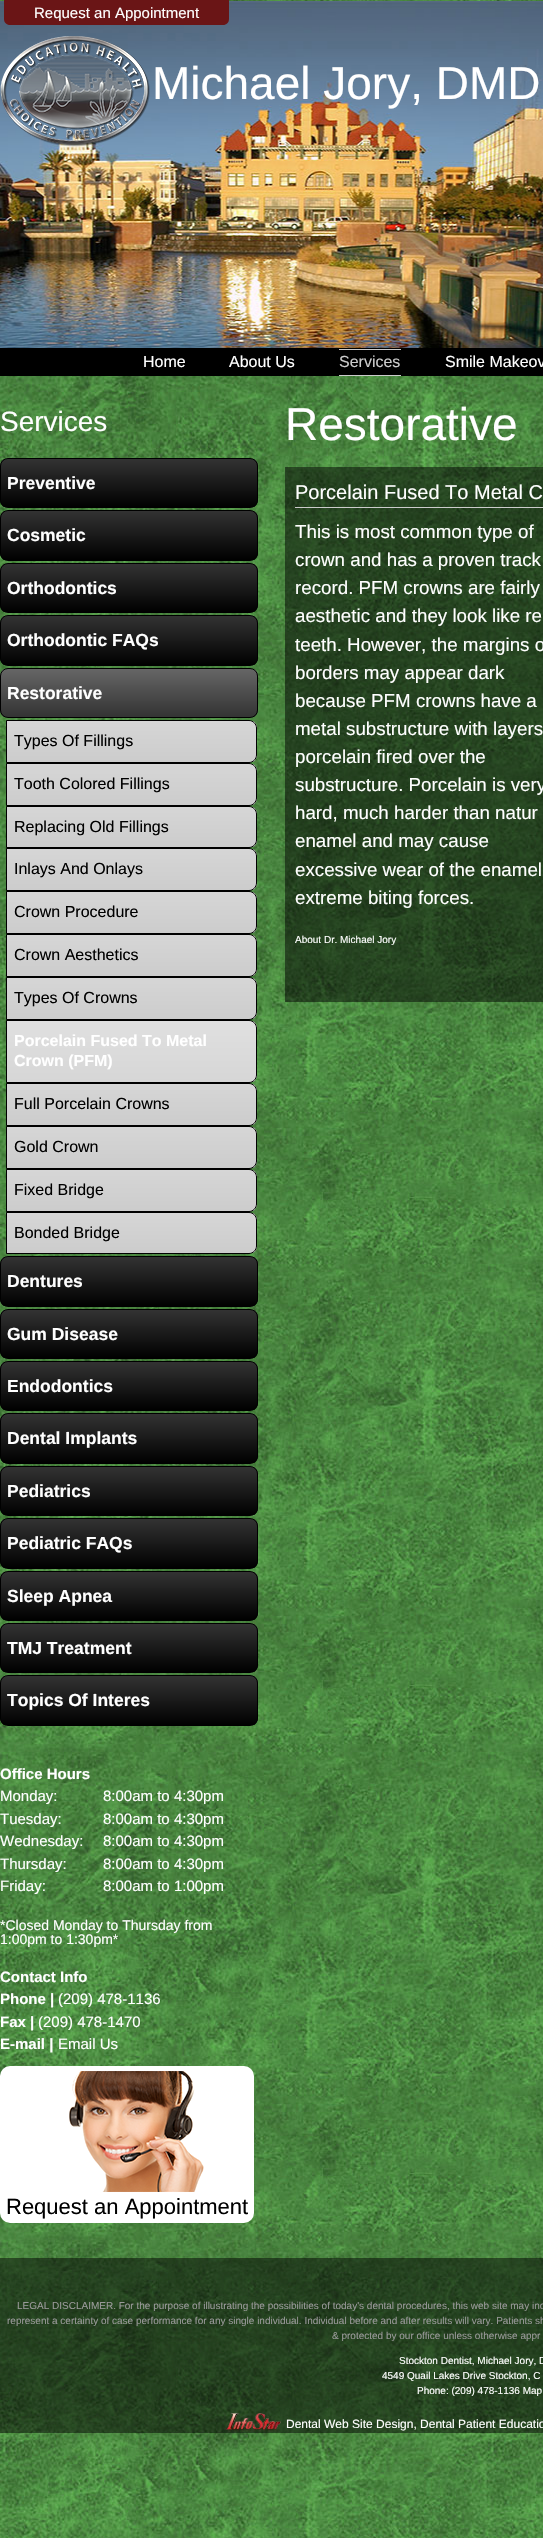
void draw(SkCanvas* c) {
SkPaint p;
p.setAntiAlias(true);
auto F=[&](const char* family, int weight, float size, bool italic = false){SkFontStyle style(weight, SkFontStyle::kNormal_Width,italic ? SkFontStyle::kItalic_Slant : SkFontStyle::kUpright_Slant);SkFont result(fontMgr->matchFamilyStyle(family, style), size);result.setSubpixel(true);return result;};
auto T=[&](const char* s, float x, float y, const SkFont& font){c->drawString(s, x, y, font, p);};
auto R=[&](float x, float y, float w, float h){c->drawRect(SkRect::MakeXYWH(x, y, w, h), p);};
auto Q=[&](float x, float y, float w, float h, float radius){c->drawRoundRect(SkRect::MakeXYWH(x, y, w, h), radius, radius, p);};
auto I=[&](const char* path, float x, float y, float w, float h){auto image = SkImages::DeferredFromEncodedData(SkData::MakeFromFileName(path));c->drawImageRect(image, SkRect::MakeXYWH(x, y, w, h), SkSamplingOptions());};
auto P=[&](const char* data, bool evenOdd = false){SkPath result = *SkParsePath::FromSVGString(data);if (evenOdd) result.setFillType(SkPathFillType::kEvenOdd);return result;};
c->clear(0xffffffff);
I("1.png",0,0,543,2538);
I("2.png",0,1,543,347);
p.setColor(0xff6a1516);
c->drawPath(P("M4 0h225v19c0 3.5-2.5 6-6 6h-213c-3.5 0-6-2.5-6-6z"),p);
auto f1 = F("Liberation Sans",400,15);
p.setColor(0xffffffff);
T("Request an Appointment",34,18,f1);
I("3.png",0,36,150,111);
auto f2 = F("Liberation Sans",400,46);
T("Michael Jory, DMD",152,99,f2);
p.setColor(0xff000000);
R(0,348,543,28);
auto f3 = F("Liberation Sans",400,16);
p.setColor(0xffffffff);
T("Home",143,367,f3);
T("About Us",229,367,f3);
p.setColor(0xffcccccc);
R(339,349,62,1);
R(339,375,62,1);
T("Services",339,367,f3);
p.setColor(0xffffffff);
T("Smile Makeov",445,367,f3);
auto f4 = F("Liberation Sans",400,28);
T("Services",0,431,f4);
c->save();
c->clipPath(P("M8 458h242c4.5 0 8 3.5 8 8v34c0 4.5-3.5 8-8 8h-242c-4.5 0-8-3.5-8-8v-34c0-4.5 3.5-8 8-8z"),true);
{
const SkColor colors[] = {0xff333333,0xff000000};
const float stops[] = {0,1};
const SkPoint ends[] = {{129,459}, {129,507}};
p.setShader(SkGradientShader::MakeLinear(ends, colors, stops, 2, SkTileMode::kClamp));
p.setAlpha(255);
}
R(0,459,258,48);
c->restore();
p.setStroke(true);
p.setStrokeWidth(1);
p.setShader(nullptr);
p.setColor(0xff000000);
c->drawRoundRect(SkRect::MakeXYWH(.5,458.5,257,49),7.5,7.5,p);
auto f5 = F("Liberation Sans",700,17.5);
p.setStroke(false);
p.setColor(0xffffffff);
T("Preventive",7,489,f5);
c->save();
c->clipPath(P("M8 510h242c4.5 0 8 3.5 8 8v35c0 4.5-3.5 8-8 8h-242c-4.5 0-8-3.5-8-8v-35c0-4.5 3.5-8 8-8z"),true);
{
const SkColor colors[] = {0xff333333,0xff000000};
const float stops[] = {0,1};
const SkPoint ends[] = {{129,511}, {129,560}};
p.setShader(SkGradientShader::MakeLinear(ends, colors, stops, 2, SkTileMode::kClamp));
p.setAlpha(255);
}
R(0,511,258,49);
c->restore();
p.setStroke(true);
p.setShader(nullptr);
p.setColor(0xff000000);
c->drawRoundRect(SkRect::MakeXYWH(.5,510.5,257,50),7.5,7.5,p);
p.setStroke(false);
p.setColor(0xffffffff);
T("Cosmetic",7,541,f5);
c->save();
c->clipPath(P("M8 563h242c4.5 0 8 3.5 8 8v34c0 4.5-3.5 8-8 8h-242c-4.5 0-8-3.5-8-8v-34c0-4.5 3.5-8 8-8z"),true);
{
const SkColor colors[] = {0xff333333,0xff000000};
const float stops[] = {0,1};
const SkPoint ends[] = {{129,564}, {129,612}};
p.setShader(SkGradientShader::MakeLinear(ends, colors, stops, 2, SkTileMode::kClamp));
p.setAlpha(255);
}
R(0,564,258,48);
c->restore();
p.setStroke(true);
p.setShader(nullptr);
p.setColor(0xff000000);
c->drawRoundRect(SkRect::MakeXYWH(.5,563.5,257,49),7.5,7.5,p);
p.setStroke(false);
p.setColor(0xffffffff);
T("Orthodontics",7,594,f5);
c->save();
c->clipPath(P("M8 615h242c4.5 0 8 3.5 8 8v35c0 4.5-3.5 8-8 8h-242c-4.5 0-8-3.5-8-8v-35c0-4.5 3.5-8 8-8z"),true);
{
const SkColor colors[] = {0xff333333,0xff000000};
const float stops[] = {0,1};
const SkPoint ends[] = {{129,616}, {129,665}};
p.setShader(SkGradientShader::MakeLinear(ends, colors, stops, 2, SkTileMode::kClamp));
p.setAlpha(255);
}
R(0,616,258,49);
c->restore();
p.setStroke(true);
p.setShader(nullptr);
p.setColor(0xff000000);
c->drawRoundRect(SkRect::MakeXYWH(.5,615.5,257,50),7.5,7.5,p);
p.setStroke(false);
p.setColor(0xffffffff);
T("Orthodontic FAQs",7,646,f5);
c->save();
c->clipPath(P("M8 668h242c4.5 0 8 3.5 8 8v34c0 4.5-3.5 8-8 8h-242c-4.5 0-8-3.5-8-8v-34c0-4.5 3.5-8 8-8z"),true);
{
const SkColor colors[] = {0xff666666,0xff333333};
const float stops[] = {0,1};
const SkPoint ends[] = {{129,669}, {129,717}};
p.setShader(SkGradientShader::MakeLinear(ends, colors, stops, 2, SkTileMode::kClamp));
p.setAlpha(255);
}
R(0,669,258,48);
c->restore();
p.setStroke(true);
p.setShader(nullptr);
p.setColor(0xff000000);
c->drawRoundRect(SkRect::MakeXYWH(.5,668.5,257,49),7.5,7.5,p);
p.setStroke(false);
p.setColor(0xffffffff);
T("Restorative",7,699,f5);
c->save();
c->clipPath(P("M6 720h243c4.5 0 8 3.5 8 8v27c0 4.5-3.5 8-8 8h-243z"),true);
{
const SkColor colors[] = {0xffd6d6d6,0xffcccccc};
const float stops[] = {0,1};
const SkPoint ends[] = {{132,721}, {132,762}};
p.setShader(SkGradientShader::MakeLinear(ends, colors, stops, 2, SkTileMode::kClamp));
p.setAlpha(255);
}
R(7,721,250,41);
c->restore();
p.setStroke(true);
p.setShader(nullptr);
p.setColor(0xff000000);
c->drawPath(P("M6.5 720.5h242.5c4 0 7.5 3.5 7.5 7.5v27c0 4-3.5 7.5-7.5 7.5h-242.5z"),p);
p.setStroke(false);
T("Types Of Fillings",14,746,f3);
c->save();
c->clipPath(P("M6 763h243c4.5 0 8 3.5 8 8v27c0 4.5-3.5 8-8 8h-243z"),true);
{
const SkColor colors[] = {0xffd6d6d6,0xffcccccc};
const float stops[] = {0,1};
const SkPoint ends[] = {{132,764}, {132,805}};
p.setShader(SkGradientShader::MakeLinear(ends, colors, stops, 2, SkTileMode::kClamp));
p.setAlpha(255);
}
R(7,764,250,41);
c->restore();
p.setStroke(true);
p.setShader(nullptr);
p.setColor(0xff000000);
c->drawPath(P("M6.5 763.5h242.5c4 0 7.5 3.5 7.5 7.5v27c0 4-3.5 7.5-7.5 7.5h-242.5z"),p);
p.setStroke(false);
T("Tooth Colored Fillings",14,789,f3);
c->save();
c->clipPath(P("M6 806h243c4.5 0 8 3.5 8 8v26c0 4.5-3.5 8-8 8h-243z"),true);
{
const SkColor colors[] = {0xffd6d6d6,0xffcccccc};
const float stops[] = {0,1};
const SkPoint ends[] = {{132,807}, {132,847}};
p.setShader(SkGradientShader::MakeLinear(ends, colors, stops, 2, SkTileMode::kClamp));
p.setAlpha(255);
}
R(7,807,250,40);
c->restore();
p.setStroke(true);
p.setShader(nullptr);
p.setColor(0xff000000);
c->drawPath(P("M6.5 806.5h242.5c4 0 7.5 3.5 7.5 7.5v26c0 4-3.5 7.5-7.5 7.5h-242.5z"),p);
p.setStroke(false);
T("Replacing Old Fillings",14,832,f3);
c->save();
c->clipPath(P("M6 848h243c4.5 0 8 3.5 8 8v27c0 4.5-3.5 8-8 8h-243z"),true);
{
const SkColor colors[] = {0xffd6d6d6,0xffcccccc};
const float stops[] = {0,1};
const SkPoint ends[] = {{132,849}, {132,890}};
p.setShader(SkGradientShader::MakeLinear(ends, colors, stops, 2, SkTileMode::kClamp));
p.setAlpha(255);
}
R(7,849,250,41);
c->restore();
p.setStroke(true);
p.setShader(nullptr);
p.setColor(0xff000000);
c->drawPath(P("M6.5 848.5h242.5c4 0 7.5 3.5 7.5 7.5v27c0 4-3.5 7.5-7.5 7.5h-242.5z"),p);
p.setStroke(false);
T("Inlays And Onlays",14,874,f3);
c->save();
c->clipPath(P("M6 891h243c4.5 0 8 3.5 8 8v27c0 4.5-3.5 8-8 8h-243z"),true);
{
const SkColor colors[] = {0xffd6d6d6,0xffcccccc};
const float stops[] = {0,1};
const SkPoint ends[] = {{132,892}, {132,933}};
p.setShader(SkGradientShader::MakeLinear(ends, colors, stops, 2, SkTileMode::kClamp));
p.setAlpha(255);
}
R(7,892,250,41);
c->restore();
p.setStroke(true);
p.setShader(nullptr);
p.setColor(0xff000000);
c->drawPath(P("M6.5 891.5h242.5c4 0 7.5 3.5 7.5 7.5v27c0 4-3.5 7.5-7.5 7.5h-242.5z"),p);
p.setStroke(false);
T("Crown Procedure",14,917,f3);
c->save();
c->clipPath(P("M6 934h243c4.5 0 8 3.5 8 8v27c0 4.5-3.5 8-8 8h-243z"),true);
{
const SkColor colors[] = {0xffd6d6d6,0xffcccccc};
const float stops[] = {0,1};
const SkPoint ends[] = {{132,935}, {132,976}};
p.setShader(SkGradientShader::MakeLinear(ends, colors, stops, 2, SkTileMode::kClamp));
p.setAlpha(255);
}
R(7,935,250,41);
c->restore();
p.setStroke(true);
p.setShader(nullptr);
p.setColor(0xff000000);
c->drawPath(P("M6.5 934.5h242.5c4 0 7.5 3.5 7.5 7.5v27c0 4-3.5 7.5-7.5 7.5h-242.5z"),p);
p.setStroke(false);
T("Crown Aesthetics",14,960,f3);
c->save();
c->clipPath(P("M6 977h243c4.5 0 8 3.5 8 8v27c0 4.5-3.5 8-8 8h-243z"),true);
{
const SkColor colors[] = {0xffd6d6d6,0xffcccccc};
const float stops[] = {0,1};
const SkPoint ends[] = {{132,978}, {132,1019}};
p.setShader(SkGradientShader::MakeLinear(ends, colors, stops, 2, SkTileMode::kClamp));
p.setAlpha(255);
}
R(7,978,250,41);
c->restore();
p.setStroke(true);
p.setShader(nullptr);
p.setColor(0xff000000);
c->drawPath(P("M6.5 977.5h242.5c4 0 7.5 3.5 7.5 7.5v27c0 4-3.5 7.5-7.5 7.5h-242.5z"),p);
p.setStroke(false);
T("Types Of Crowns",14,1003,f3);
c->save();
c->clipPath(P("M6 1020h243c4.5 0 8 3.5 8 8v47c0 4.5-3.5 8-8 8h-243z"),true);
{
const SkColor colors[] = {0xffe0e0e0,0xffd6d6d6};
const float stops[] = {0,1};
const SkPoint ends[] = {{132,1021}, {132,1082}};
p.setShader(SkGradientShader::MakeLinear(ends, colors, stops, 2, SkTileMode::kClamp));
p.setAlpha(255);
}
R(7,1021,250,61);
c->restore();
p.setStroke(true);
p.setShader(nullptr);
p.setColor(0xff000000);
c->drawPath(P("M6.5 1020.5h242.5c4 0 7.5 3.5 7.5 7.5v47c0 4-3.5 7.5-7.5 7.5h-242.5z"),p);
auto f6 = F("Liberation Sans",700,16);
p.setStroke(false);
p.setColor(0xffffffff);
T("Porcelain Fused To Metal",14,1046,f6);
T("Crown (PFM)",14,1066,f6);
c->save();
c->clipPath(P("M6 1083h243c4.5 0 8 3.5 8 8v27c0 4.5-3.5 8-8 8h-243z"),true);
{
const SkColor colors[] = {0xffd6d6d6,0xffcccccc};
const float stops[] = {0,1};
const SkPoint ends[] = {{132,1084}, {132,1125}};
p.setShader(SkGradientShader::MakeLinear(ends, colors, stops, 2, SkTileMode::kClamp));
p.setAlpha(255);
}
R(7,1084,250,41);
c->restore();
p.setStroke(true);
p.setShader(nullptr);
p.setColor(0xff000000);
c->drawPath(P("M6.5 1083.5h242.5c4 0 7.5 3.5 7.5 7.5v27c0 4-3.5 7.5-7.5 7.5h-242.5z"),p);
p.setStroke(false);
T("Full Porcelain Crowns",14,1109,f3);
c->save();
c->clipPath(P("M6 1126h243c4.5 0 8 3.5 8 8v27c0 4.5-3.5 8-8 8h-243z"),true);
{
const SkColor colors[] = {0xffd6d6d6,0xffcccccc};
const float stops[] = {0,1};
const SkPoint ends[] = {{132,1127}, {132,1168}};
p.setShader(SkGradientShader::MakeLinear(ends, colors, stops, 2, SkTileMode::kClamp));
p.setAlpha(255);
}
R(7,1127,250,41);
c->restore();
p.setStroke(true);
p.setShader(nullptr);
p.setColor(0xff000000);
c->drawPath(P("M6.5 1126.5h242.5c4 0 7.5 3.5 7.5 7.5v27c0 4-3.5 7.5-7.5 7.5h-242.5z"),p);
p.setStroke(false);
T("Gold Crown",14,1152,f3);
c->save();
c->clipPath(P("M6 1169h243c4.5 0 8 3.5 8 8v27c0 4.5-3.5 8-8 8h-243z"),true);
{
const SkColor colors[] = {0xffd6d6d6,0xffcccccc};
const float stops[] = {0,1};
const SkPoint ends[] = {{132,1170}, {132,1211}};
p.setShader(SkGradientShader::MakeLinear(ends, colors, stops, 2, SkTileMode::kClamp));
p.setAlpha(255);
}
R(7,1170,250,41);
c->restore();
p.setStroke(true);
p.setShader(nullptr);
p.setColor(0xff000000);
c->drawPath(P("M6.5 1169.5h242.5c4 0 7.5 3.5 7.5 7.5v27c0 4-3.5 7.5-7.5 7.5h-242.5z"),p);
p.setStroke(false);
T("Fixed Bridge",14,1195,f3);
c->save();
c->clipPath(P("M6 1212h243c4.5 0 8 3.5 8 8v26c0 4.5-3.5 8-8 8h-243z"),true);
{
const SkColor colors[] = {0xffd6d6d6,0xffcccccc};
const float stops[] = {0,1};
const SkPoint ends[] = {{132,1213}, {132,1253}};
p.setShader(SkGradientShader::MakeLinear(ends, colors, stops, 2, SkTileMode::kClamp));
p.setAlpha(255);
}
R(7,1213,250,40);
c->restore();
p.setStroke(true);
p.setShader(nullptr);
p.setColor(0xff000000);
c->drawPath(P("M6.5 1212.5h242.5c4 0 7.5 3.5 7.5 7.5v26c0 4-3.5 7.5-7.5 7.5h-242.5z"),p);
p.setStroke(false);
T("Bonded Bridge",14,1238,f3);
c->save();
c->clipPath(P("M8 1256h242c4.5 0 8 3.5 8 8v35c0 4.5-3.5 8-8 8h-242c-4.5 0-8-3.5-8-8v-35c0-4.5 3.5-8 8-8z"),true);
{
const SkColor colors[] = {0xff333333,0xff000000};
const float stops[] = {0,1};
const SkPoint ends[] = {{129,1257}, {129,1306}};
p.setShader(SkGradientShader::MakeLinear(ends, colors, stops, 2, SkTileMode::kClamp));
p.setAlpha(255);
}
R(0,1257,258,49);
c->restore();
p.setStroke(true);
p.setShader(nullptr);
p.setColor(0xff000000);
c->drawRoundRect(SkRect::MakeXYWH(.5,1256.5,257,50),7.5,7.5,p);
p.setStroke(false);
p.setColor(0xffffffff);
T("Dentures",7,1287,f5);
c->save();
c->clipPath(P("M8 1309h242c4.5 0 8 3.5 8 8v34c0 4.5-3.5 8-8 8h-242c-4.5 0-8-3.5-8-8v-34c0-4.5 3.5-8 8-8z"),true);
{
const SkColor colors[] = {0xff333333,0xff000000};
const float stops[] = {0,1};
const SkPoint ends[] = {{129,1310}, {129,1358}};
p.setShader(SkGradientShader::MakeLinear(ends, colors, stops, 2, SkTileMode::kClamp));
p.setAlpha(255);
}
R(0,1310,258,48);
c->restore();
p.setStroke(true);
p.setShader(nullptr);
p.setColor(0xff000000);
c->drawRoundRect(SkRect::MakeXYWH(.5,1309.5,257,49),7.5,7.5,p);
p.setStroke(false);
p.setColor(0xffffffff);
T("Gum Disease",7,1340,f5);
c->save();
c->clipPath(P("M8 1361h242c4.5 0 8 3.5 8 8v34c0 4.5-3.5 8-8 8h-242c-4.5 0-8-3.5-8-8v-34c0-4.5 3.5-8 8-8z"),true);
{
const SkColor colors[] = {0xff333333,0xff000000};
const float stops[] = {0,1};
const SkPoint ends[] = {{129,1362}, {129,1410}};
p.setShader(SkGradientShader::MakeLinear(ends, colors, stops, 2, SkTileMode::kClamp));
p.setAlpha(255);
}
R(0,1362,258,48);
c->restore();
p.setStroke(true);
p.setShader(nullptr);
p.setColor(0xff000000);
c->drawRoundRect(SkRect::MakeXYWH(.5,1361.5,257,49),7.5,7.5,p);
p.setStroke(false);
p.setColor(0xffffffff);
T("Endodontics",7,1392,f5);
c->save();
c->clipPath(P("M8 1413h242c4.5 0 8 3.5 8 8v35c0 4.5-3.5 8-8 8h-242c-4.5 0-8-3.5-8-8v-35c0-4.5 3.5-8 8-8z"),true);
{
const SkColor colors[] = {0xff333333,0xff000000};
const float stops[] = {0,1};
const SkPoint ends[] = {{129,1414}, {129,1463}};
p.setShader(SkGradientShader::MakeLinear(ends, colors, stops, 2, SkTileMode::kClamp));
p.setAlpha(255);
}
R(0,1414,258,49);
c->restore();
p.setStroke(true);
p.setShader(nullptr);
p.setColor(0xff000000);
c->drawRoundRect(SkRect::MakeXYWH(.5,1413.5,257,50),7.5,7.5,p);
p.setStroke(false);
p.setColor(0xffffffff);
T("Dental Implants",7,1444,f5);
c->save();
c->clipPath(P("M8 1466h242c4.5 0 8 3.5 8 8v34c0 4.5-3.5 8-8 8h-242c-4.5 0-8-3.5-8-8v-34c0-4.5 3.5-8 8-8z"),true);
{
const SkColor colors[] = {0xff333333,0xff000000};
const float stops[] = {0,1};
const SkPoint ends[] = {{129,1467}, {129,1515}};
p.setShader(SkGradientShader::MakeLinear(ends, colors, stops, 2, SkTileMode::kClamp));
p.setAlpha(255);
}
R(0,1467,258,48);
c->restore();
p.setStroke(true);
p.setShader(nullptr);
p.setColor(0xff000000);
c->drawRoundRect(SkRect::MakeXYWH(.5,1466.5,257,49),7.5,7.5,p);
p.setStroke(false);
p.setColor(0xffffffff);
T("Pediatrics",7,1497,f5);
c->save();
c->clipPath(P("M8 1518h242c4.5 0 8 3.5 8 8v35c0 4.5-3.5 8-8 8h-242c-4.5 0-8-3.5-8-8v-35c0-4.5 3.5-8 8-8z"),true);
{
const SkColor colors[] = {0xff333333,0xff000000};
const float stops[] = {0,1};
const SkPoint ends[] = {{129,1519}, {129,1568}};
p.setShader(SkGradientShader::MakeLinear(ends, colors, stops, 2, SkTileMode::kClamp));
p.setAlpha(255);
}
R(0,1519,258,49);
c->restore();
p.setStroke(true);
p.setShader(nullptr);
p.setColor(0xff000000);
c->drawRoundRect(SkRect::MakeXYWH(.5,1518.5,257,50),7.5,7.5,p);
p.setStroke(false);
p.setColor(0xffffffff);
T("Pediatric FAQs",7,1549,f5);
c->save();
c->clipPath(P("M8 1571h242c4.5 0 8 3.5 8 8v34c0 4.5-3.5 8-8 8h-242c-4.5 0-8-3.5-8-8v-34c0-4.5 3.5-8 8-8z"),true);
{
const SkColor colors[] = {0xff333333,0xff000000};
const float stops[] = {0,1};
const SkPoint ends[] = {{129,1572}, {129,1620}};
p.setShader(SkGradientShader::MakeLinear(ends, colors, stops, 2, SkTileMode::kClamp));
p.setAlpha(255);
}
R(0,1572,258,48);
c->restore();
p.setStroke(true);
p.setShader(nullptr);
p.setColor(0xff000000);
c->drawRoundRect(SkRect::MakeXYWH(.5,1571.5,257,49),7.5,7.5,p);
p.setStroke(false);
p.setColor(0xffffffff);
T("Sleep Apnea",7,1602,f5);
c->save();
c->clipPath(P("M8 1623h242c4.5 0 8 3.5 8 8v34c0 4.5-3.5 8-8 8h-242c-4.5 0-8-3.5-8-8v-34c0-4.5 3.5-8 8-8z"),true);
{
const SkColor colors[] = {0xff333333,0xff000000};
const float stops[] = {0,1};
const SkPoint ends[] = {{129,1624}, {129,1672}};
p.setShader(SkGradientShader::MakeLinear(ends, colors, stops, 2, SkTileMode::kClamp));
p.setAlpha(255);
}
R(0,1624,258,48);
c->restore();
p.setStroke(true);
p.setShader(nullptr);
p.setColor(0xff000000);
c->drawRoundRect(SkRect::MakeXYWH(.5,1623.5,257,49),7.5,7.5,p);
p.setStroke(false);
p.setColor(0xffffffff);
T("TMJ Treatment",7,1654,f5);
c->save();
c->clipPath(P("M8 1675h242c4.5 0 8 3.5 8 8v35c0 4.5-3.5 8-8 8h-242c-4.5 0-8-3.5-8-8v-35c0-4.5 3.5-8 8-8z"),true);
{
const SkColor colors[] = {0xff333333,0xff000000};
const float stops[] = {0,1};
const SkPoint ends[] = {{129,1676}, {129,1725}};
p.setShader(SkGradientShader::MakeLinear(ends, colors, stops, 2, SkTileMode::kClamp));
p.setAlpha(255);
}
R(0,1676,258,49);
c->restore();
p.setStroke(true);
p.setShader(nullptr);
p.setColor(0xff000000);
c->drawRoundRect(SkRect::MakeXYWH(.5,1675.5,257,50),7.5,7.5,p);
p.setStroke(false);
p.setColor(0xffffffff);
T("Topics Of Interes",7,1706,f5);
auto f7 = F("Liberation Sans",700,15);
T("Office Hours",0,1779,f7);
T("Monday:",0,1801,f1);
T("Tuesday:",0,1824,f1);
T("Wednesday:",0,1846,f1);
T("Thursday:",0,1869,f1);
T("Friday:",0,1891,f1);
T("8:00am to 4:30pm",103,1801,f1);
T("8:00am to 4:30pm",103,1824,f1);
T("8:00am to 4:30pm",103,1846,f1);
T("8:00am to 4:30pm",103,1869,f1);
T("8:00am to 1:00pm",103,1891,f1);
auto f8 = F("Liberation Sans",400,14);
T("*Closed Monday to Thursday from",0,1930,f8);
T("1:00pm to 1:30pm*",0,1944,f8);
T("Contact Info",0,1982,f7);
T("Phone |",0,2004,f7);
T("(209) 478-1136",58,2004,f1);
T("Fax |",0,2027,f7);
T("(209) 478-1470",38,2027,f1);
T("E-mail |",0,2049,f7);
T("Email Us",58,2049,f1);
Q(0,2066,254,157,10);
I("4.png",69,2071,135,121);
auto f9 = F("Liberation Sans",400,22);
p.setColor(0xff000000);
T("Request an Appointment",6,2214,f9);
p.setColor(0xffffffff);
T("Restorative",285,440,f2);
p.setColor(0x80000000);
R(285,467,258,535);
p.setColor(0xffcccccc);
R(295,507,248,1);
auto f10 = F("Liberation Sans",400,20);
p.setColor(0xffffffff);
T("Porcelain Fused To Metal C",295,499,f10);
auto f11 = F("Liberation Sans",400,18.75);
T("This is most common type of",295,538,f11);
T("crown and has a proven track",295,566,f11);
T("record. PFM crowns are fairly",295,594,f11);
T("aesthetic and they look like re",295,622,f11);
T("teeth. However, the margins o",295,651,f11);
T("borders may appear dark",295,679,f11);
T("because PFM crowns have a",295,707,f11);
T("metal substructure with layers",295,735,f11);
T("porcelain fired over the",295,763,f11);
T("substructure. Porcelain is very",295,791,f11);
T("hard, much harder than natur",295,819,f11);
T("enamel and may cause",295,847,f11);
T("excessive wear of the enamel",295,876,f11);
T("extreme biting forces.",295,904,f11);
auto f12 = F("Liberation Sans",400,10);
T("About Dr. Michael Jory",295,943,f12);
p.setColor(0x80000000);
R(0,2258,543,175);
p.setColor(0xff999999);
T("LEGAL DISCLAIMER. For the purpose of illustrating the possibilities of today's dental procedures, this web site may inc",17,2309,f12);
T("represent a certainty of case performance for any single individual. Individual before and after results will vary. Patients sh",7,2324,f12);
T("& protected by our office unless otherwise appr",332,2339,f12);
p.setColor(0xffffffff);
T("Stockton Dentist, Michael Jory, D",399,2364,f12);
T("4549 Quail Lakes Drive Stockton, C",382,2379,f12);
T("Phone: (209) 478-1136 Map",417,2394,f12);
I("5.png",225,2413,56,19);
auto f13 = F("Liberation Sans",400,12);
T("Dental Web Site Design, Dental Patient Educatio",286,2428,f13);
}
